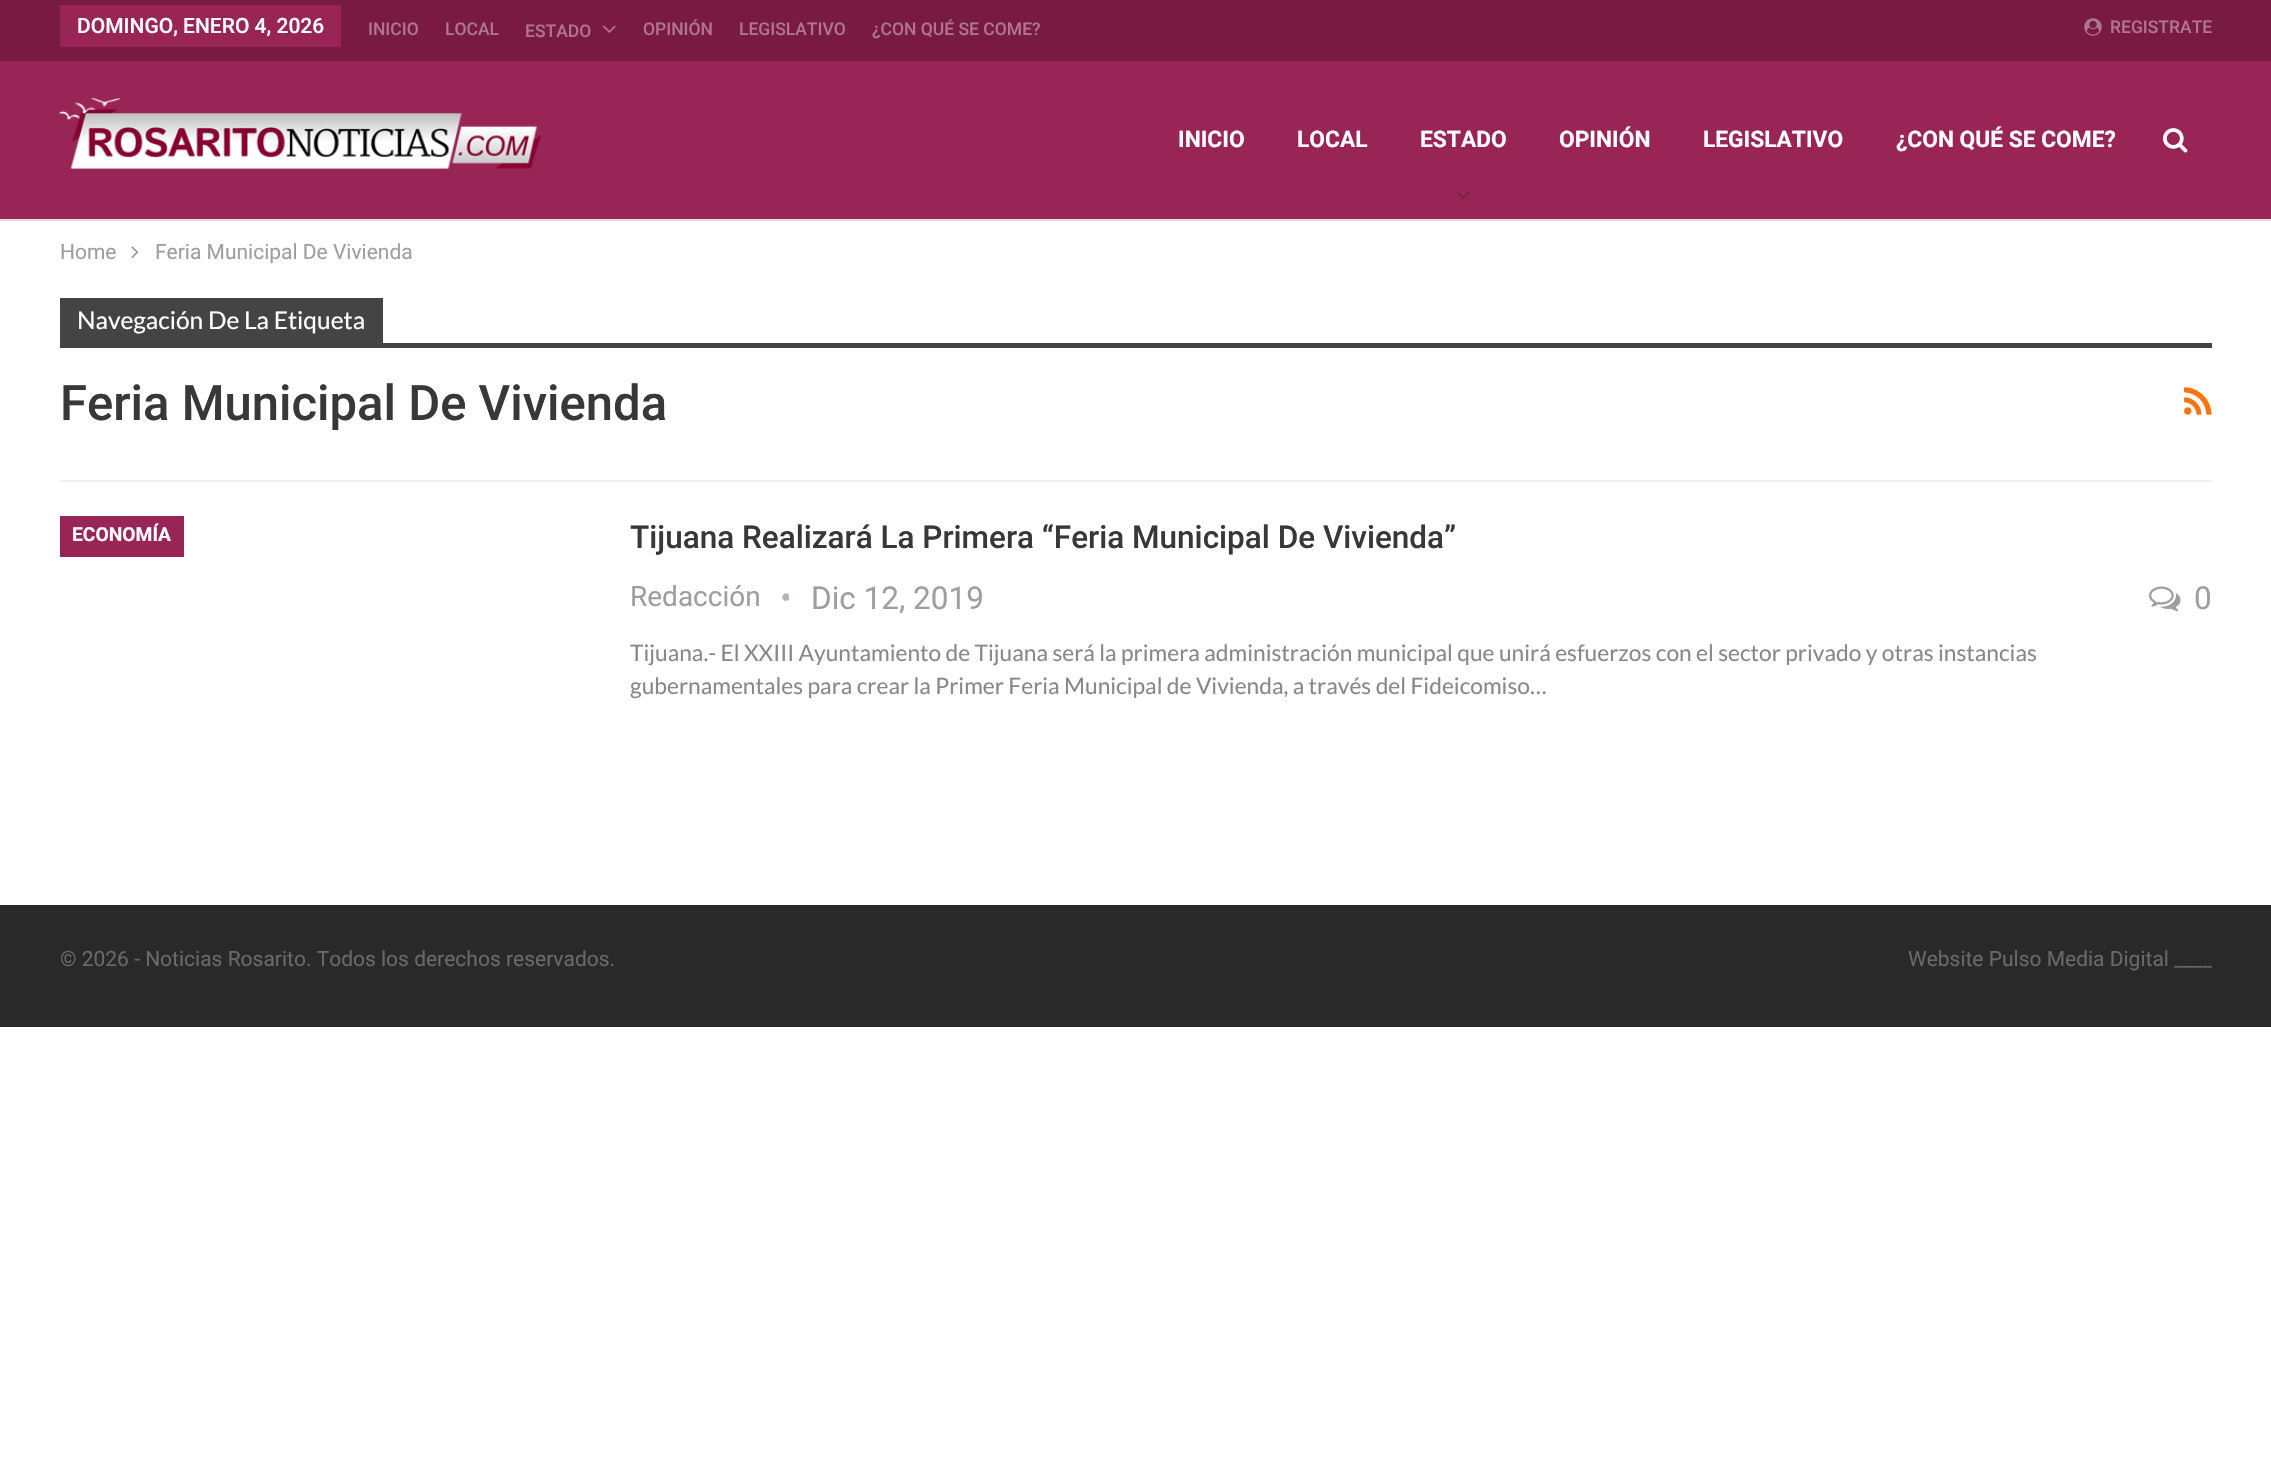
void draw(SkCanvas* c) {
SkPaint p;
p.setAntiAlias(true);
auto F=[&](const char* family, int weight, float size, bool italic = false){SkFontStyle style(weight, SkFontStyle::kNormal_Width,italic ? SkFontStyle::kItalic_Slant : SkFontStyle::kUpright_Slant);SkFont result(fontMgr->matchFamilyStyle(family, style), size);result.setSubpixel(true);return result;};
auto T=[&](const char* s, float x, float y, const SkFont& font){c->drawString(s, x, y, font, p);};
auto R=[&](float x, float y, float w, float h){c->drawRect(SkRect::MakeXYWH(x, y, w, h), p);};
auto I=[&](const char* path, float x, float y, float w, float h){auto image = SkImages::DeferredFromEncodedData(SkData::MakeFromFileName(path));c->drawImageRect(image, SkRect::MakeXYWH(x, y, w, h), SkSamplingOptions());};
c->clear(0xffffffff);
p.setColor(0xff992556);
R(0,61,2271,158);
p.setColor(0xffdedede);
R(0,219,2271,2);
p.setColor(0xff791a42);
R(0,0,2271,61);
p.setColor(0xff992556);
R(60,5,281,42);
auto f1 = F("Roboto",500,21);
p.setColor(0xffffffff);
T("DOMINGO, ENERO 4, 2026",77,33,f1);
auto f2 = F("Roboto",500,17.5);
p.setColor(0xffaf768e);
T("INICIO",368,35,f2);
T("LOCAL",445,35,f2);
T("ESTADO",525,37,f2);
I("1.png",603,25,13,8);
T("OPINIÓN",643,35,f2);
T("LEGISLATIVO",739,35,f2);
T("¿CON QUÉ SE COME?",872,35,f2);
I("2.png",2084,18,18,18);
T("REGISTRATE",2110,33,f2);
I("3.png",59,98,482,71);
auto f3 = F("Roboto",700,22.75);
p.setColor(0xffffffff);
T("INICIO",1178,147,f3);
T("LOCAL",1297,147,f3);
T("ESTADO",1420,147,f3);
I("4.png",1457,192,13,7);
T("OPINIÓN",1559,147,f3);
T("LEGISLATIVO",1703,147,f3);
T("¿CON QUÉ SE COME?",1896,147,f3);
I("5.png",2163,128,25,25);
auto f4 = F("Roboto",400,21);
p.setColor(0xff9e9e9e);
T("Home",60,259,f4);
I("6.png",131,246,8,12);
T("Feria Municipal De Vivienda",155,259,f4);
p.setColor(0xfff0f0f0);
R(60,480,2152,2);
p.setColor(0xff444444);
R(60,298,323,45);
auto f5 = F("Lato",400,24.5);
p.setColor(0xffffffff);
T("Navegación De La Etiqueta",77,329,f5);
p.setColor(0xff444444);
R(60,343,2152,5);
auto f6 = F("Roboto",500,49);
p.setColor(0xff383838);
T("Feria Municipal De Vivienda",60,420,f6);
I("7.png",2184,387,28,28);
p.setColor(0xff992556);
R(60,516,124,41);
auto f7 = F("Roboto",700,19.25);
p.setColor(0xffffffff);
T("ECONOMÍA",72,541,f7);
auto f8 = F("Roboto",500,31.5);
p.setColor(0xff383838);
T("Tijuana Realizará La Primera “Feria Municipal De Vivienda”",630,548,f8);
auto f9 = F("Roboto",400,28);
p.setColor(0xff9e9e9e);
T("Redacción",630,606,f9);
I("8.png",782,593,7,8);
auto f10 = F("Roboto",400,31.5);
T("Dic 12, 2019",811,609,f10);
I("9.png",2149,586,32,26);
T("0",2194,609,f10);
auto f11 = F("Lato",400,22.75);
p.setColor(0xff888888);
T("Tijuana.- El XXIII Ayuntamiento de Tijuana será la primera administración municipal que unirá esfuerzos con el sector privado y otras instancias",630,661,f11);
T("gubernamentales para crear la Primer Feria Municipal de Vivienda, a través del Fideicomiso…",630,694,f11);
p.setColor(0xff292929);
R(0,905,2271,122);
p.setColor(0xff696969);
T("© 2026 - Noticias Rosarito. Todos los derechos reservados.",60,966,f4);
T("Website Pulso Media Digital ____",1908,966,f4);
}
